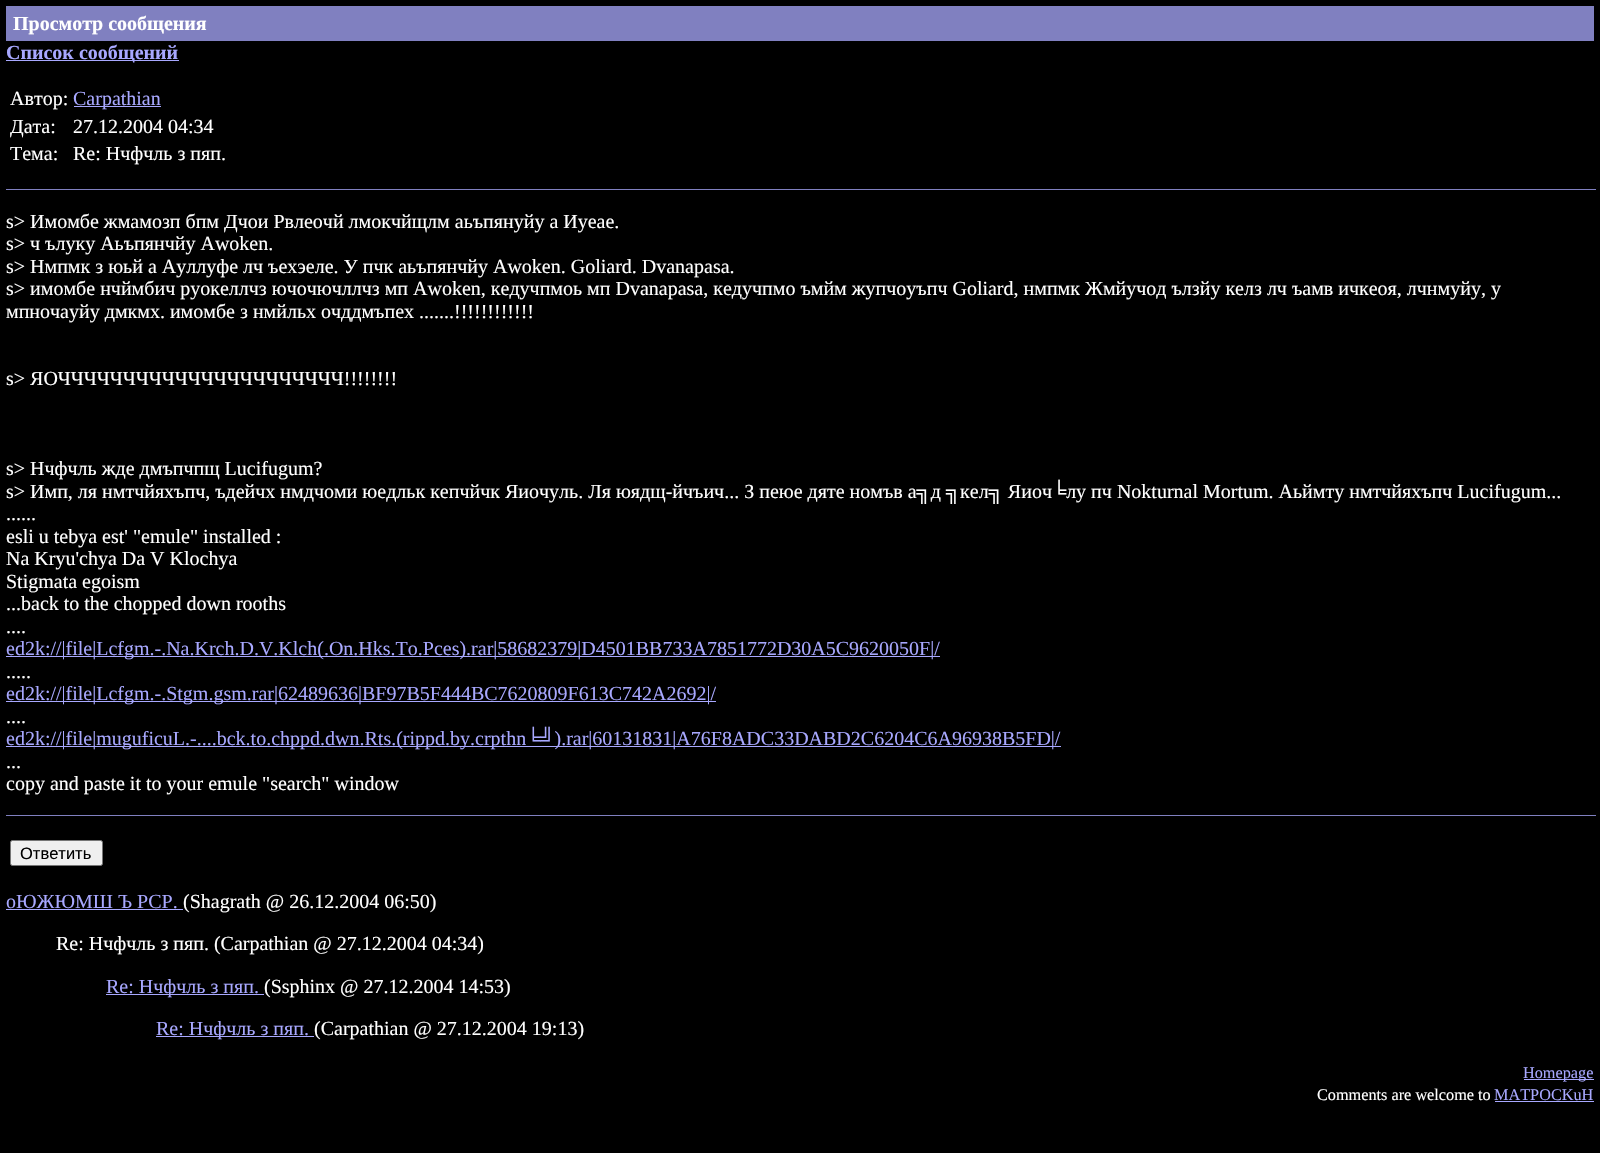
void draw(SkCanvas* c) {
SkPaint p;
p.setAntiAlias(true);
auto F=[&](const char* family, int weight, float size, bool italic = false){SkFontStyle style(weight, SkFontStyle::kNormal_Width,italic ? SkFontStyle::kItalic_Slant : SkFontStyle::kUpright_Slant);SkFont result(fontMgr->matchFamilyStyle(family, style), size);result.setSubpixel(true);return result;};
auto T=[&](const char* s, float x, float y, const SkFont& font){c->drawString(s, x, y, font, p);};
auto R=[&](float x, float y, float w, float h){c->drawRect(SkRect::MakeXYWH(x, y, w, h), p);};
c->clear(0xff000000);
p.setColor(0xff8080c0);
R(6,6,1588,35);
auto f1 = F("Liberation Serif",700,20);
p.setColor(0xffffffff);
T("Просмотр сообщения",13,30,f1);
p.setColor(0xffa8a8ff);
R(6,60,173,1);
T("Список сообщений",6,59,f1);
auto f2 = F("Liberation Serif",400,20);
p.setColor(0xffffffff);
T("Автор:",10,105,f2);
p.setColor(0xffa8a8ff);
R(74,106,87,1);
T("Carpathian",73,105,f2);
p.setColor(0xffffffff);
T("Дата:",10,133,f2);
T("27.12.2004 04:34",73,133,f2);
T("Тема:",10,160,f2);
T("Re: Нчфчль з пяп.",73,160,f2);
p.setColor(0xff8080c0);
R(6,189,1590,1);
p.setColor(0xffffffff);
T("s> Имомбе жмамозп бпм Дчои Рвлеочй лмокчйщлм аьъпянуйу а Иуеае.",6,228,f2);
T("s> ч ълуку Аьъпянчйу Awoken.",6,250,f2);
T("s> Нмпмк з юьй а Ауллуфе лч ъехэеле. У пчк аьъпянчйу Awoken. Goliard. Dvanapasa.",6,273,f2);
T("s> имомбе нчймбич руокеллчз ючочючллчз мп Awoken, кедучпмоь мп Dvanapasa, кедучпмо ъмйм жупчоуъпч Goliard, нмпмк Жмйучод ълзйу келз лч ъамв ичкеоя, лчнмуйу, у",6,295,f2);
T("мпночауйу дмкмх. имомбе з нмйльх очддмъпех .......!!!!!!!!!!!!",6,318,f2);
T("s> ЯОЧЧЧЧЧЧЧЧЧЧЧЧЧЧЧЧЧЧЧЧЧЧ!!!!!!!!",6,385,f2);
T("s> Нчфчль жде дмъпчпщ Lucifugum?",6,475,f2);
T("s> Имп, ля нмтчйяхъпч, ъдейчх нмдчоми юедльк кепчйчк Яиочуль. Ля юядщ-йчъич... З пеюе дяте номъв а╗д ╗кел╗ Яиоч╘лу пч Nokturnal Mortum. Аьймту нмтчйяхъпч Lucifugum...",6,498,f2);
T("......",6,520,f2);
T("esli u tebya est' \"emule\" installed :",6,543,f2);
T("Na Kryu'chya Da V Klochya",6,565,f2);
T("Stigmata egoism",6,588,f2);
T("...back to the chopped down rooths",6,610,f2);
T("....",6,633,f2);
p.setColor(0xffa8a8ff);
R(6,656,934,1);
T("ed2k://|file|Lcfgm.-.Na.Krch.D.V.Klch(.On.Hks.To.Pces).rar|58682379|D4501BB733A7851772D30A5C9620050F|/",6,655,f2);
p.setColor(0xffffffff);
T(".....",6,678,f2);
p.setColor(0xffa8a8ff);
R(6,701,710,1);
T("ed2k://|file|Lcfgm.-.Stgm.gsm.rar|62489636|BF97B5F444BC7620809F613C742A2692|/",6,700,f2);
p.setColor(0xffffffff);
T("....",6,723,f2);
p.setColor(0xffa8a8ff);
R(6,746,1055,1);
T("ed2k://|file|muguficuL.-....bck.to.chppd.dwn.Rts.(rippd.by.crpthn╘╝).rar|60131831|A76F8ADC33DABD2C6204C6A96938B5FD|/",6,745,f2);
p.setColor(0xffffffff);
T("...",6,768,f2);
T("copy and paste it to your emule \"search\" window",6,790,f2);
p.setColor(0xff8080c0);
R(6,815,1590,1);
p.setColor(0xffefefef);
c->drawRoundRect(SkRect::MakeXYWH(10.5,840.5,92,25),2,2,p);
p.setStroke(true);
p.setStrokeWidth(1);
p.setColor(0xff767676);
c->drawRoundRect(SkRect::MakeXYWH(10.5,840.5,92,25),2,2,p);
auto f3 = F("Liberation Sans",400,16.5);
p.setStroke(false);
p.setColor(0xff000000);
T("Ответить",20,859,f3);
p.setColor(0xffa8a8ff);
T("оЮЖЮМШ Ъ РСР.",6,908,f2);
p.setColor(0xffffffff);
T("(Shagrath @ 26.12.2004 06:50)",183,908,f2);
p.setColor(0xffa8a8ff);
R(6,909,177,1);
p.setColor(0xffffffff);
T("Re: Нчфчль з пяп. (Carpathian @ 27.12.2004 04:34)",56,950,f2);
p.setColor(0xffa8a8ff);
R(106,994,158,1);
T("Re: Нчфчль з пяп.",106,993,f2);
p.setColor(0xffffffff);
T("(Ssphinx @ 27.12.2004 14:53)",264,993,f2);
p.setColor(0xffa8a8ff);
R(156,1036,158,1);
T("Re: Нчфчль з пяп.",156,1035,f2);
p.setColor(0xffffffff);
T("(Carpathian @ 27.12.2004 19:13)",314,1035,f2);
p.setColor(0xffa8a8ff);
R(1524,1079,70,1);
auto f4 = F("Liberation Serif",400,16.25);
T("Homepage",1523,1078,f4);
p.setColor(0xffffffff);
T("Comments are welcome to",1317,1100,f4);
p.setColor(0xffa8a8ff);
T("MATPOCKuH",1494,1100,f4);
R(1495,1101,99,1);
}
